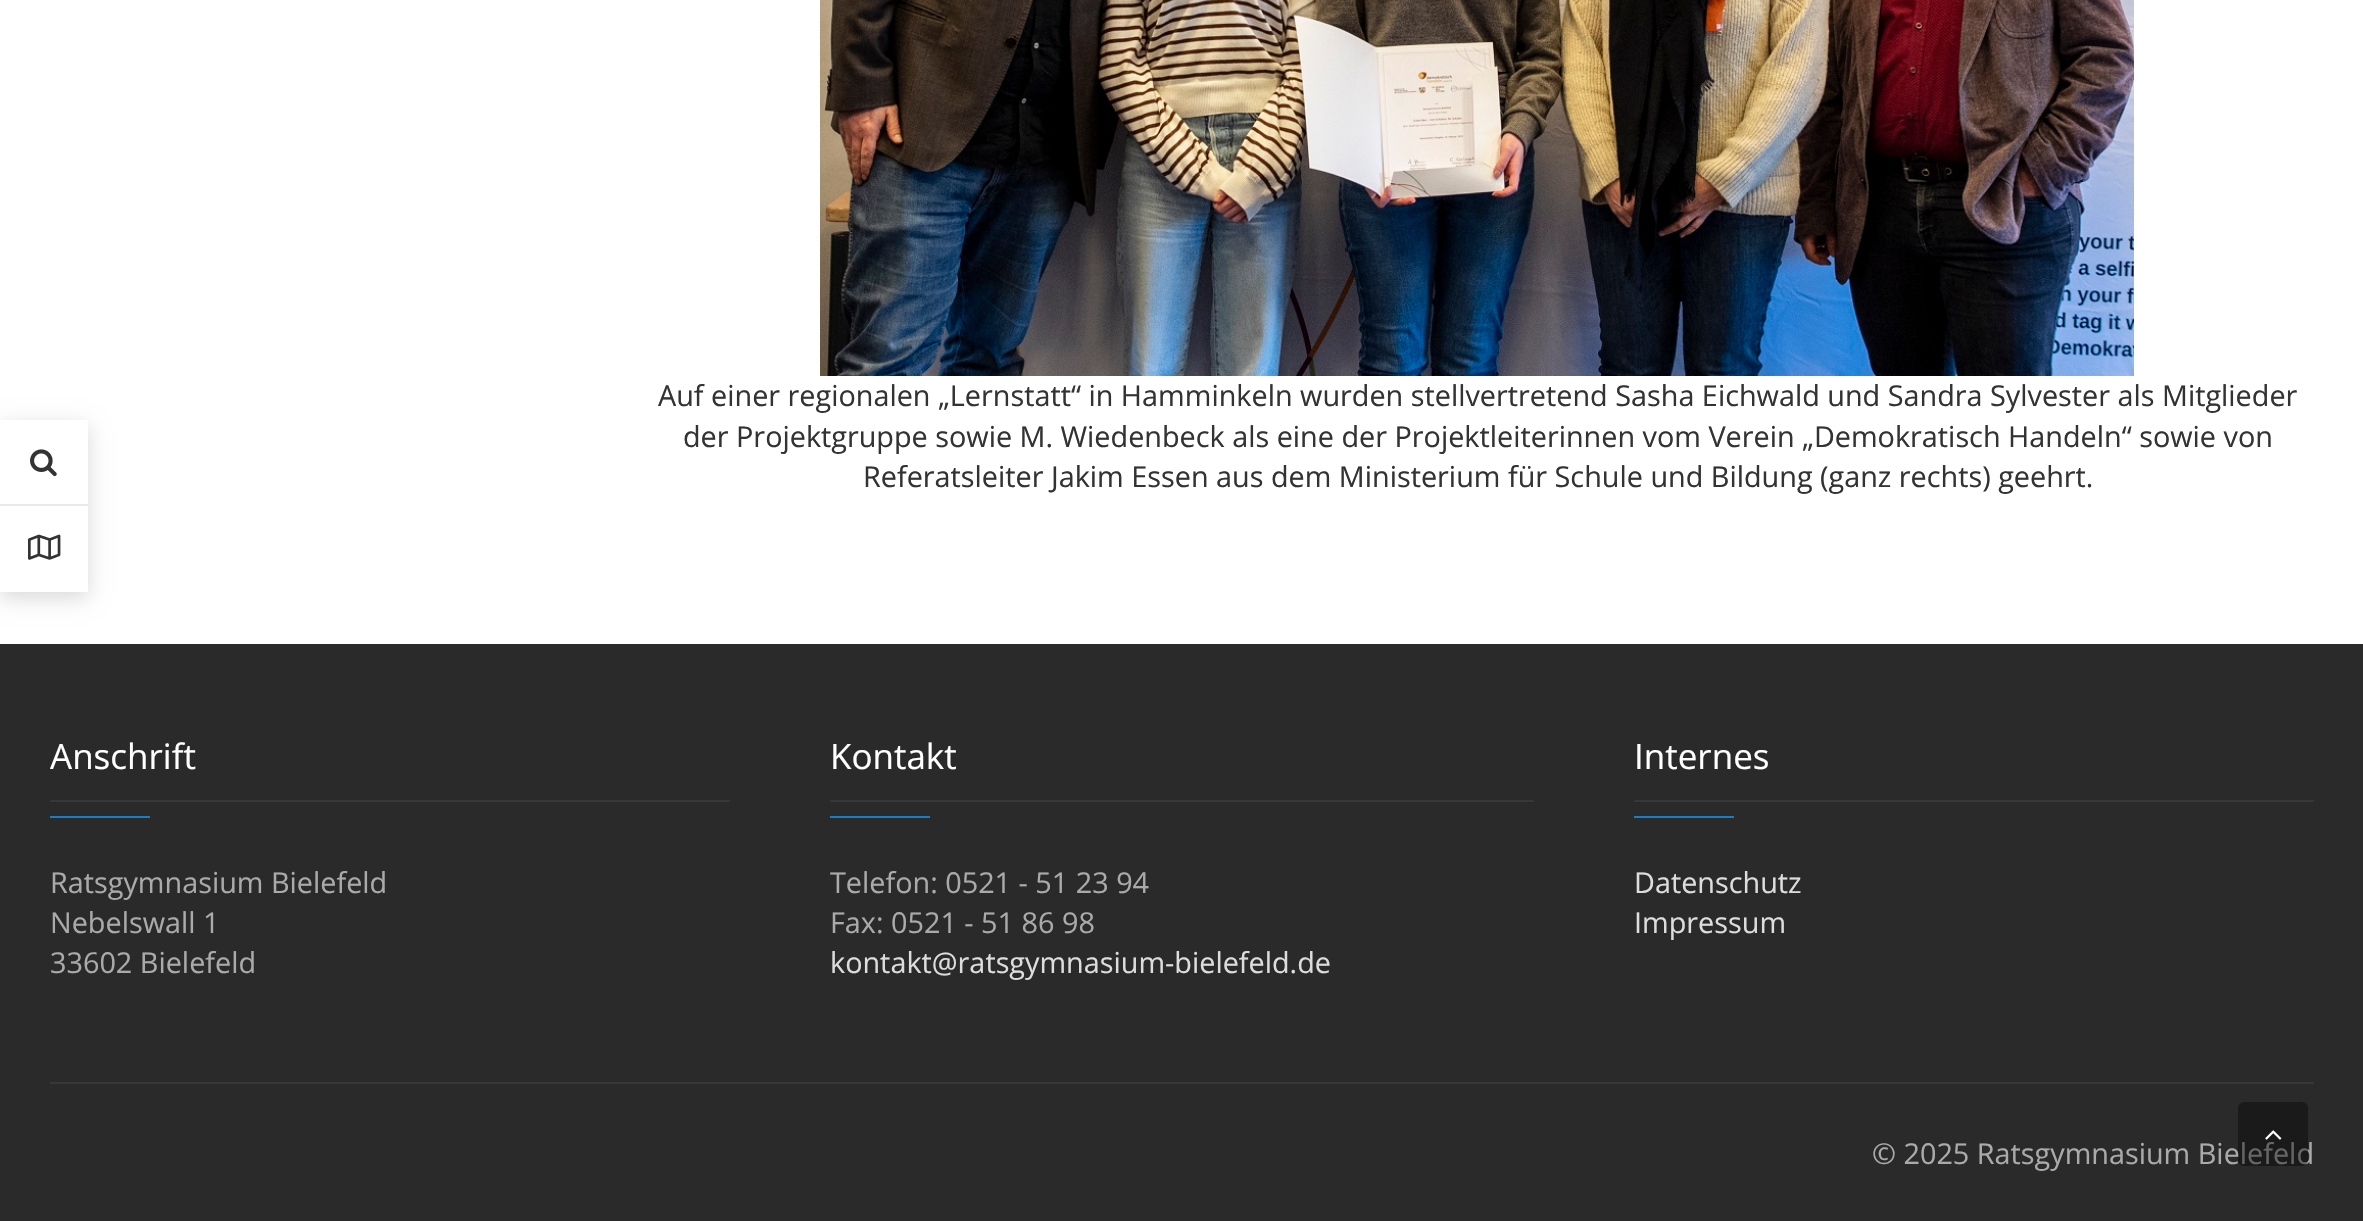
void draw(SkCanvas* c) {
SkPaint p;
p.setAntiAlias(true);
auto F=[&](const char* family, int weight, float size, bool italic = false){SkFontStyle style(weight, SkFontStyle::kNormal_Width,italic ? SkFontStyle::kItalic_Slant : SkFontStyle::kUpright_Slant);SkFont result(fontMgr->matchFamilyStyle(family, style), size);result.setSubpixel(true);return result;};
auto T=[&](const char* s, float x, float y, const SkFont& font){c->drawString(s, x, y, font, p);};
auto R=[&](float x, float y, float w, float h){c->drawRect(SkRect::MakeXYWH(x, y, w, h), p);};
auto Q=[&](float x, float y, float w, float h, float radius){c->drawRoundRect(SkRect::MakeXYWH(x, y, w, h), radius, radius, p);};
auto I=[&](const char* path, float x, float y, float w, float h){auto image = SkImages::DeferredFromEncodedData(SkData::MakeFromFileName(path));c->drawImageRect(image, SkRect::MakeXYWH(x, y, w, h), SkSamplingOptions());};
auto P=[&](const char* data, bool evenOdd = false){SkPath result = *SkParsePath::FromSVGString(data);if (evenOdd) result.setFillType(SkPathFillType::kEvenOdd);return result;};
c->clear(0xff2a2a2a);
p.setColor(0xffffffff);
R(0,0,2363,644);
c->save();
c->clipPath(P("M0 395h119v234h-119zm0 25h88v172h-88z",true),true);
p.setColor(0x26000000);
p.setMaskFilter(SkMaskFilter::MakeBlur(kNormal_SkBlurStyle, 10));
c->drawRect(SkRect::MakeXYWH(0,426,88,172),p);
p.setMaskFilter(nullptr);
c->restore();
p.setColor(0xffe9e9e9);
R(0,504,88,2);
I("1.png",30,449,27,28);
I("2.png",28,534,33,26);
I("3.png",820,0,1314,376);
auto f1 = F("Open Sans",400,28.8);
p.setColor(0xff333333);
T("Auf einer regionalen „Lernstatt“ in Hamminkeln wurden stellvertretend Sasha Eichwald und Sandra Sylvester als Mitglieder",658,406,f1);
T("der Projektgruppe sowie M. Wiedenbeck als eine der Projektleiterinnen vom Verein „Demokratisch Handeln“ sowie von",683,447,f1);
T("Referatsleiter Jakim Essen aus dem Ministerium für Schule und Bildung (ganz rechts) geehrt.",863,487,f1);
p.setColor(0xff373737);
R(50,800,680,2);
auto f2 = F("Open Sans",400,35);
p.setColor(0xffffffff);
T("Anschrift",50,769,f2);
p.setColor(0xff177fc6);
R(50,816,100,2);
p.setColor(0xffaaaaaa);
T("Ratsgymnasium Bielefeld",50,893,f1);
T("Nebelswall 1",50,933,f1);
T("33602 Bielefeld",50,973,f1);
p.setColor(0xff373737);
R(830,800,704,2);
p.setColor(0xffffffff);
T("Kontakt",830,769,f2);
p.setColor(0xff177fc6);
R(830,816,100,2);
p.setColor(0xffaaaaaa);
T("Telefon: 0521 - 51 23 94",830,893,f1);
T("Fax: 0521 - 51 86 98",830,933,f1);
p.setColor(0xffdddddd);
T("kontakt@ratsgymnasium-bielefeld.de",830,973,f1);
p.setColor(0xff373737);
R(1634,800,680,2);
p.setColor(0xffffffff);
T("Internes",1634,769,f2);
p.setColor(0xff177fc6);
R(1634,816,100,2);
p.setColor(0xffdddddd);
T("Datenschutz",1634,893,f1);
T("Impressum",1634,933,f1);
p.setColor(0xff373737);
R(50,1082,2264,2);
p.setColor(0xffaaaaaa);
T("© 2025 Ratsgymnasium Bielefeld",1872,1164,f1);
p.setColor(0x66000000);
Q(2238,1102,70,64,6);
I("4.png",2265,1130,17,10);
}
